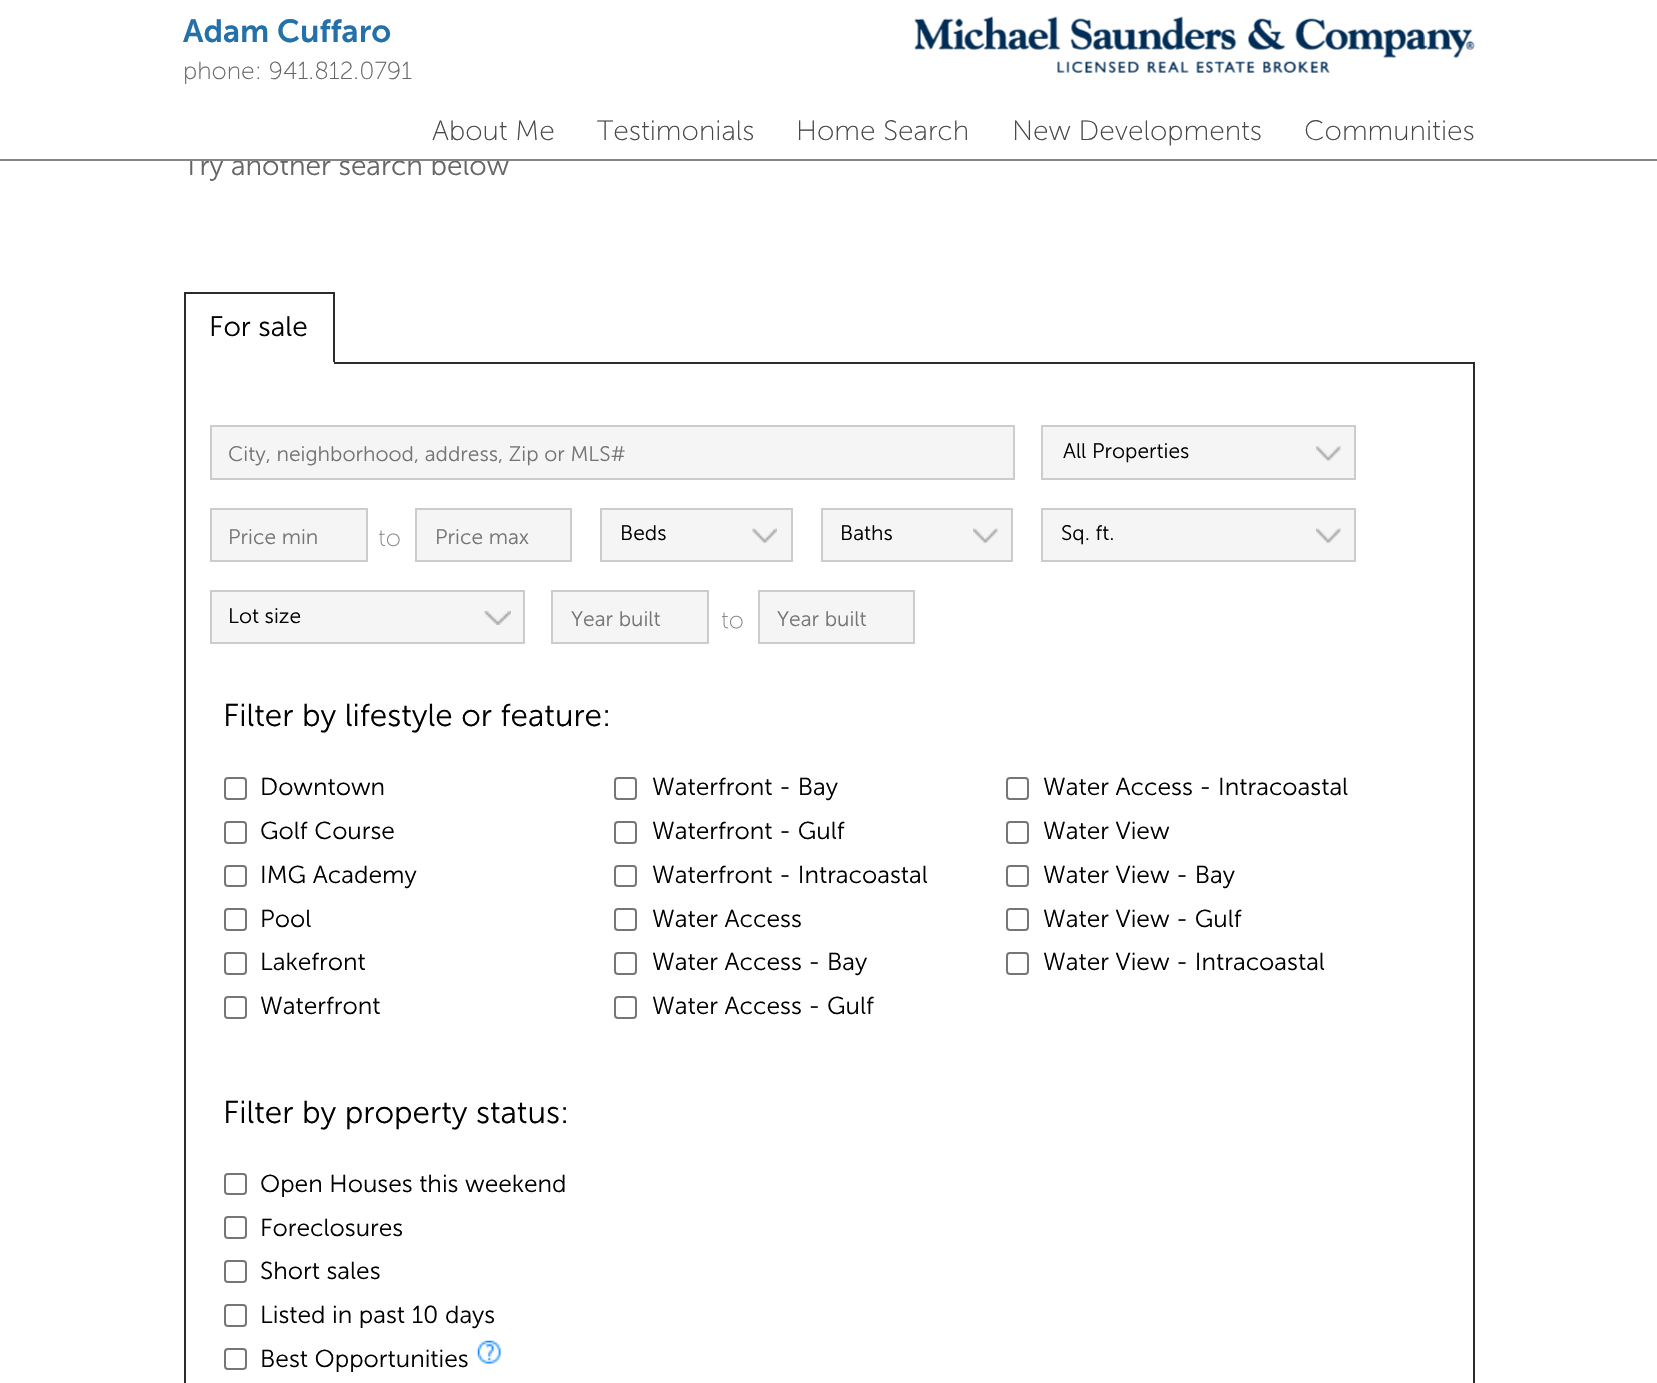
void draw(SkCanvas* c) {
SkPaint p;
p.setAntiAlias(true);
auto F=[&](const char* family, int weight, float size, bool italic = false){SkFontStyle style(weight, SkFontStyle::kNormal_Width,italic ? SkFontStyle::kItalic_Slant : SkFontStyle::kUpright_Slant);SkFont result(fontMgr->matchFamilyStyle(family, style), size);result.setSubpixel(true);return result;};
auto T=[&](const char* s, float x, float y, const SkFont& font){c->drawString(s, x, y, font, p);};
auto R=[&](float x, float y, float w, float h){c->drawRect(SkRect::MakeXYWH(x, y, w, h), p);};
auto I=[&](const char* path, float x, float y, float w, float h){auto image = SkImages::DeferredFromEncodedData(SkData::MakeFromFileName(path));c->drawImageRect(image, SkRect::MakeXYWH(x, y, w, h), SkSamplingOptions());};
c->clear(0xffffffff);
auto f1 = F("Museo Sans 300",300,28);
p.setColor(0xff676565);
T("Try another search below",183,175,f1);
p.setColor(0xffffffff);
R(183,155,284,4);
p.setColor(0xff868585);
R(0,159,1657,2);
auto f2 = F("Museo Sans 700",600,32);
p.setColor(0xff2471aa);
T("Adam Cuffaro",183,42,f2);
auto f3 = F("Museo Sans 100",300,24.5);
p.setColor(0xff676565);
T("phone: 941.812.0791",183,79,f3);
I("1.png",914,16,561,57);
auto f4 = F("Museo Sans 100",300,28);
p.setColor(0xff484646);
T("About Me",432,140,f4);
T("Testimonials",597,140,f4);
T("Home Search",796,140,f4);
T("New Developments",1012,140,f4);
T("Communities",1304,140,f4);
p.setColor(0xff2b2b2b);
R(184,292,150,2);
p.setStroke(true);
p.setStrokeWidth(2);
c->drawRect(SkRect::MakeXYWH(185,363,1289,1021),p);
p.setStroke(false);
R(333,292,2,72);
p.setColor(0xffffffff);
R(184,362,150,2);
p.setColor(0xff2b2b2b);
R(184,292,2,72);
p.setColor(0xff000000);
T("For sale",209,336,f1);
p.setColor(0xfff5f5f5);
c->drawRect(SkRect::MakeXYWH(211,426,803,53),p);
p.setStroke(true);
p.setColor(0xffcccccc);
c->drawRect(SkRect::MakeXYWH(211,426,803,53),p);
auto f5 = F("Museo Sans 300",300,21);
p.setStroke(false);
p.setColor(0xff757575);
T("City, neighborhood, address, Zip or MLS#",228,461,f5);
p.setColor(0xfff5f5f5);
c->drawRect(SkRect::MakeXYWH(1042,426,313,53),p);
p.setStroke(true);
p.setColor(0xffcccccc);
c->drawRect(SkRect::MakeXYWH(1042,426,313,53),p);
p.setStroke(false);
p.setColor(0xff000000);
T("All Properties",1063,458,f5);
I("2.png",1316,446,25,15);
p.setColor(0xfff5f5f5);
c->drawRect(SkRect::MakeXYWH(211,509,156,52),p);
p.setStroke(true);
p.setColor(0xffcccccc);
c->drawRect(SkRect::MakeXYWH(211,509,156,52),p);
p.setStroke(false);
p.setColor(0xff757575);
T("Price min",228,544,f5);
I("3.png",378,530,22,17);
p.setColor(0xfff5f5f5);
c->drawRect(SkRect::MakeXYWH(416,509,155,52),p);
p.setStroke(true);
p.setColor(0xffcccccc);
c->drawRect(SkRect::MakeXYWH(416,509,155,52),p);
p.setStroke(false);
p.setColor(0xff757575);
T("Price max",435,544,f5);
p.setColor(0xfff5f5f5);
c->drawRect(SkRect::MakeXYWH(601,509,191,52),p);
p.setStroke(true);
p.setColor(0xffcccccc);
c->drawRect(SkRect::MakeXYWH(601,509,191,52),p);
p.setStroke(false);
p.setColor(0xff000000);
T("Beds",620,540,f5);
I("4.png",752,528,25,15);
p.setColor(0xfff5f5f5);
c->drawRect(SkRect::MakeXYWH(822,509,190,52),p);
p.setStroke(true);
p.setColor(0xffcccccc);
c->drawRect(SkRect::MakeXYWH(822,509,190,52),p);
p.setStroke(false);
p.setColor(0xff000000);
T("Baths",840,540,f5);
I("5.png",973,528,25,15);
p.setColor(0xfff5f5f5);
c->drawRect(SkRect::MakeXYWH(1042,509,313,52),p);
p.setStroke(true);
p.setColor(0xffcccccc);
c->drawRect(SkRect::MakeXYWH(1042,509,313,52),p);
p.setStroke(false);
p.setColor(0xff000000);
T("Sq. ft.",1061,540,f5);
I("6.png",1316,528,25,15);
p.setColor(0xfff5f5f5);
c->drawRect(SkRect::MakeXYWH(211,591,313,52),p);
p.setStroke(true);
p.setColor(0xffcccccc);
c->drawRect(SkRect::MakeXYWH(211,591,313,52),p);
p.setStroke(false);
p.setColor(0xff000000);
T("Lot size",228,623,f5);
I("7.png",484,611,27,14);
p.setColor(0xfff5f5f5);
c->drawRect(SkRect::MakeXYWH(552,591,156,52),p);
p.setStroke(true);
p.setColor(0xffcccccc);
c->drawRect(SkRect::MakeXYWH(552,591,156,52),p);
p.setStroke(false);
p.setColor(0xff757575);
T("Year built",571,626,f5);
I("8.png",721,612,22,17);
p.setColor(0xfff5f5f5);
c->drawRect(SkRect::MakeXYWH(759,591,155,52),p);
p.setStroke(true);
p.setColor(0xffcccccc);
c->drawRect(SkRect::MakeXYWH(759,591,155,52),p);
p.setStroke(false);
p.setColor(0xff757575);
T("Year built",777,626,f5);
auto f6 = F("Museo Sans 300",300,31.5);
p.setColor(0xff000000);
T("Filter by lifestyle or feature:",223,726,f6);
p.setStroke(true);
p.setColor(0xff767676);
c->drawRoundRect(SkRect::MakeXYWH(225,778,21,21),3,3,p);
auto f7 = F("Museo Sans 300",300,24.5);
p.setStroke(false);
p.setColor(0xff000000);
T("Downtown",260,795,f7);
p.setStroke(true);
p.setColor(0xff767676);
c->drawRoundRect(SkRect::MakeXYWH(225,822,21,21),3,3,p);
p.setStroke(false);
p.setColor(0xff000000);
T("Golf Course",260,839,f7);
p.setStroke(true);
p.setColor(0xff767676);
c->drawRoundRect(SkRect::MakeXYWH(225,866,21,20),3,3,p);
p.setStroke(false);
p.setColor(0xff000000);
T("IMG Academy",260,883,f7);
p.setStroke(true);
p.setColor(0xff767676);
c->drawRoundRect(SkRect::MakeXYWH(225,909,21,21),3,3,p);
p.setStroke(false);
p.setColor(0xff000000);
T("Pool",260,927,f7);
p.setStroke(true);
p.setColor(0xff767676);
c->drawRoundRect(SkRect::MakeXYWH(225,953,21,21),3,3,p);
p.setStroke(false);
p.setColor(0xff000000);
T("Lakefront",260,970,f7);
p.setStroke(true);
p.setColor(0xff767676);
c->drawRoundRect(SkRect::MakeXYWH(225,997,21,21),3,3,p);
p.setStroke(false);
p.setColor(0xff000000);
T("Waterfront",260,1014,f7);
p.setStroke(true);
p.setColor(0xff767676);
c->drawRoundRect(SkRect::MakeXYWH(615,778,21,21),3,3,p);
p.setStroke(false);
p.setColor(0xff000000);
T("Waterfront - Bay",652,795,f7);
p.setStroke(true);
p.setColor(0xff767676);
c->drawRoundRect(SkRect::MakeXYWH(615,822,21,21),3,3,p);
p.setStroke(false);
p.setColor(0xff000000);
T("Waterfront - Gulf",652,839,f7);
p.setStroke(true);
p.setColor(0xff767676);
c->drawRoundRect(SkRect::MakeXYWH(615,866,21,20),3,3,p);
p.setStroke(false);
p.setColor(0xff000000);
T("Waterfront - Intracoastal",652,883,f7);
p.setStroke(true);
p.setColor(0xff767676);
c->drawRoundRect(SkRect::MakeXYWH(615,909,21,21),3,3,p);
p.setStroke(false);
p.setColor(0xff000000);
T("Water Access",652,927,f7);
p.setStroke(true);
p.setColor(0xff767676);
c->drawRoundRect(SkRect::MakeXYWH(615,953,21,21),3,3,p);
p.setStroke(false);
p.setColor(0xff000000);
T("Water Access - Bay",652,970,f7);
p.setStroke(true);
p.setColor(0xff767676);
c->drawRoundRect(SkRect::MakeXYWH(615,997,21,21),3,3,p);
p.setStroke(false);
p.setColor(0xff000000);
T("Water Access - Gulf",652,1014,f7);
p.setStroke(true);
p.setColor(0xff767676);
c->drawRoundRect(SkRect::MakeXYWH(1007,778,21,21),3,3,p);
p.setStroke(false);
p.setColor(0xff000000);
T("Water Access - Intracoastal",1043,795,f7);
p.setStroke(true);
p.setColor(0xff767676);
c->drawRoundRect(SkRect::MakeXYWH(1007,822,21,21),3,3,p);
p.setStroke(false);
p.setColor(0xff000000);
T("Water View",1043,839,f7);
p.setStroke(true);
p.setColor(0xff767676);
c->drawRoundRect(SkRect::MakeXYWH(1007,866,21,20),3,3,p);
p.setStroke(false);
p.setColor(0xff000000);
T("Water View - Bay",1043,883,f7);
p.setStroke(true);
p.setColor(0xff767676);
c->drawRoundRect(SkRect::MakeXYWH(1007,909,21,21),3,3,p);
p.setStroke(false);
p.setColor(0xff000000);
T("Water View - Gulf",1043,927,f7);
p.setStroke(true);
p.setColor(0xff767676);
c->drawRoundRect(SkRect::MakeXYWH(1007,953,21,21),3,3,p);
p.setStroke(false);
p.setColor(0xff000000);
T("Water View - Intracoastal",1043,970,f7);
T("Filter by property status:",223,1123,f6);
p.setStroke(true);
p.setColor(0xff767676);
c->drawRoundRect(SkRect::MakeXYWH(225,1174,21,20),3,3,p);
p.setStroke(false);
p.setColor(0xff000000);
T("Open Houses this weekend",260,1192,f7);
p.setStroke(true);
p.setColor(0xff767676);
c->drawRoundRect(SkRect::MakeXYWH(225,1217,21,21),3,3,p);
p.setStroke(false);
p.setColor(0xff000000);
T("Foreclosures",260,1236,f7);
p.setStroke(true);
p.setColor(0xff767676);
c->drawRoundRect(SkRect::MakeXYWH(225,1261,21,21),3,3,p);
p.setStroke(false);
p.setColor(0xff000000);
T("Short sales",260,1279,f7);
p.setStroke(true);
p.setColor(0xff767676);
c->drawRoundRect(SkRect::MakeXYWH(225,1305,21,21),3,3,p);
p.setStroke(false);
p.setColor(0xff000000);
T("Listed in past 10 days",260,1323,f7);
p.setStroke(true);
p.setColor(0xff767676);
c->drawRoundRect(SkRect::MakeXYWH(225,1349,21,20),3,3,p);
p.setStroke(false);
p.setColor(0xff000000);
T("Best Opportunities",260,1367,f7);
I("9.png",477,1340,24,24);
}
